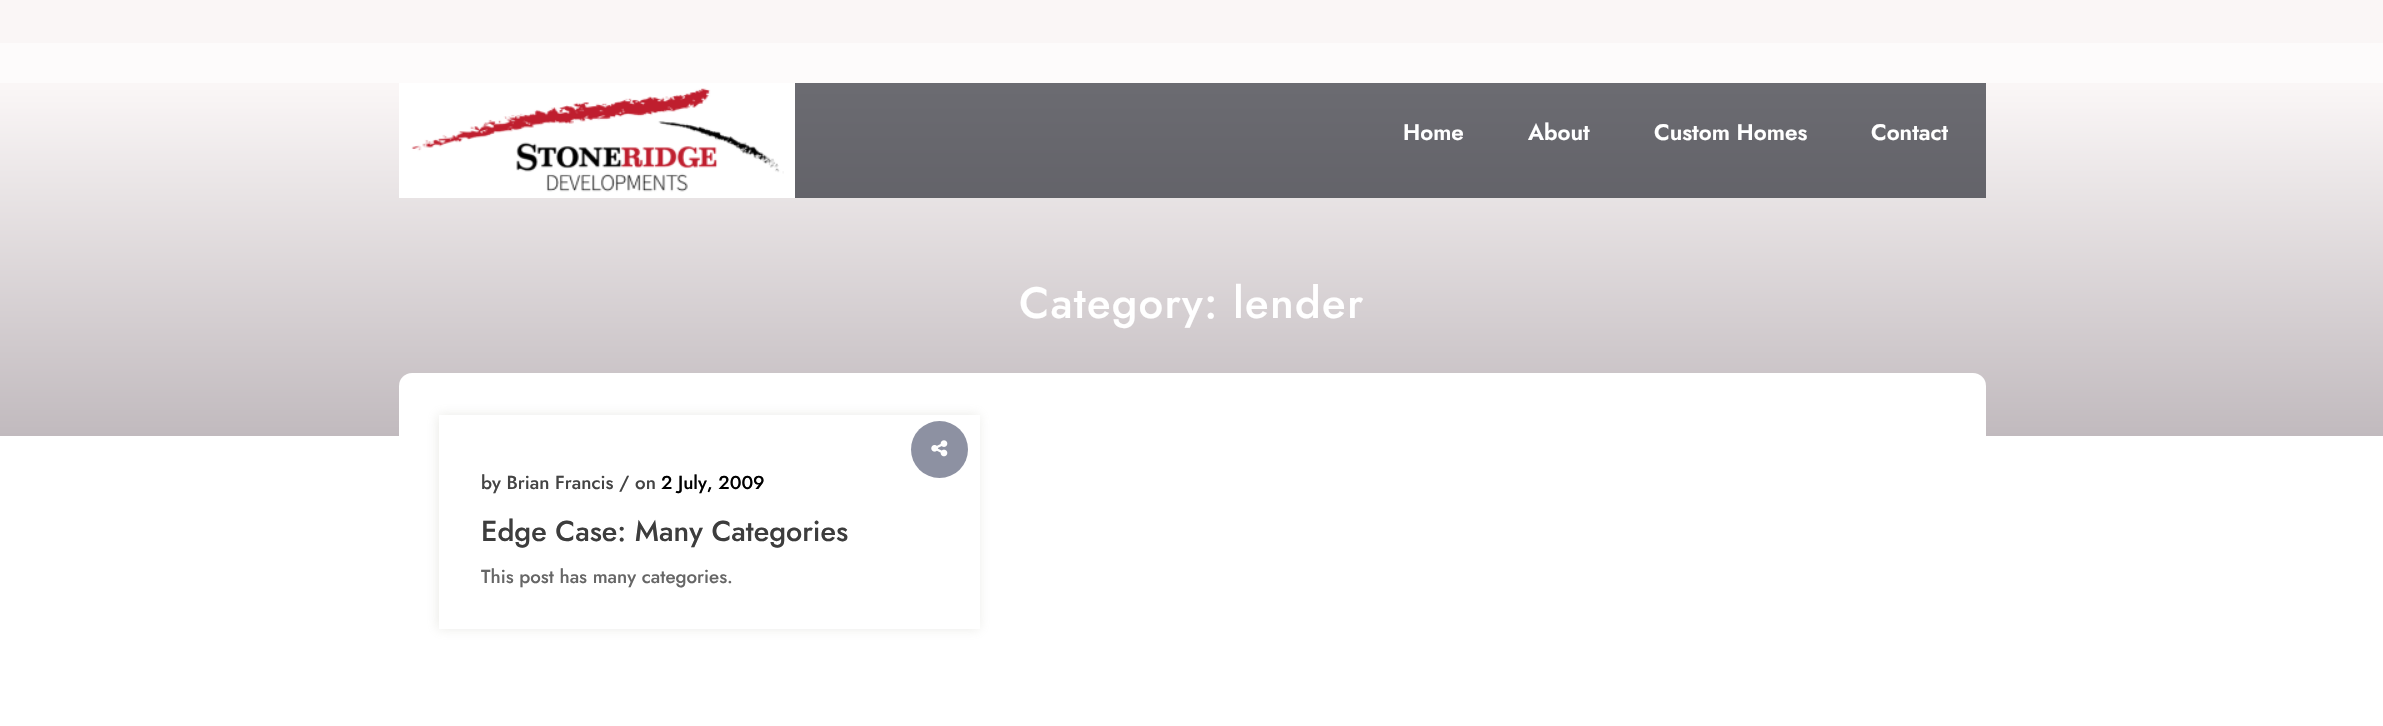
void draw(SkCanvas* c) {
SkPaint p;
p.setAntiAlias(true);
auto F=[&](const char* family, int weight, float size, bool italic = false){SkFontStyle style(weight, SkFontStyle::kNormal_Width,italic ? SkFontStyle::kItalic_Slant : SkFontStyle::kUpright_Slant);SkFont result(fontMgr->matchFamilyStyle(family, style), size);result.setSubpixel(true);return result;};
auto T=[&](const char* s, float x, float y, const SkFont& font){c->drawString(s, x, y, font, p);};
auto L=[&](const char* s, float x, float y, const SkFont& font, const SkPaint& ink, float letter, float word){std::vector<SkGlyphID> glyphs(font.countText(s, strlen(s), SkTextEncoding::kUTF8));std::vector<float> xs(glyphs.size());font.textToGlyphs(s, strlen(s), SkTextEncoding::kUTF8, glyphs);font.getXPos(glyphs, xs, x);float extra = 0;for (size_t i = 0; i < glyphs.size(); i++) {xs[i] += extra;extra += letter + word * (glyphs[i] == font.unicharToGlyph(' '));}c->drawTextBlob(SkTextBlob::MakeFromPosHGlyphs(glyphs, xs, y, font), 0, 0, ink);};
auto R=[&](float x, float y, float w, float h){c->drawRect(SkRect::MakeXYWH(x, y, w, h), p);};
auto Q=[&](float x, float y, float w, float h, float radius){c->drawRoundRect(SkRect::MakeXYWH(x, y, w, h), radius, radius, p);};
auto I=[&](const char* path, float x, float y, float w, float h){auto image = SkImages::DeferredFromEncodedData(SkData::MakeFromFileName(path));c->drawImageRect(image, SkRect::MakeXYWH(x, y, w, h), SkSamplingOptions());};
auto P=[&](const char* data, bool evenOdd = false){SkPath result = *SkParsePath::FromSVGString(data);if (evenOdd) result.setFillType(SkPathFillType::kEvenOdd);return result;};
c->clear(0xffffffff);
{
const SkColor colors[] = {0xffc1babe,0xfffaf6f6};
const float stops[] = {0,.8};
const SkPoint ends[] = {{1192,436}, {1192,0}};
p.setShader(SkGradientShader::MakeLinear(ends, colors, stops, 2, SkTileMode::kClamp));
p.setAlpha(255);
}
R(0,0,2383,436);
p.setShader(nullptr);
p.setColor(0xfffdfbfb);
R(0,43,2383,40);
p.setColor(0xffffffff);
R(399,83,396,115);
I("1.png",411,88,373,104);
{
const SkColor colors[] = {0xff535259,0xff6b6b71};
const float stops[] = {0,.8};
const SkPoint ends[] = {{1192,436}, {1192,0}};
p.setShader(SkGradientShader::MakeLinear(ends, colors, stops, 2, SkTileMode::kClamp));
p.setAlpha(255);
}
R(795,83,1191,115);
auto f1 = F("Jost",600,22.5);
p.setShader(nullptr);
p.setColor(0xffffffff);
T("Home",1403,140,f1);
T("About",1528,140,f1);
T("Custom Homes",1654,140,f1);
T("Contact",1871,140,f1);
auto f2 = F("Jost",500,43.75);
L("Category: lender",1019,318,f2,p,1.25,0);
Q(399,373,1587,317,13);
c->save();
c->clipPath(P("M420 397h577v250h-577zm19 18h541v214h-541z",true),true);
p.setColor(0x33989883);
p.setMaskFilter(SkMaskFilter::MakeBlur(kNormal_SkBlurStyle, 5.5));
c->drawRect(SkRect::MakeXYWH(438,415,541,214),p);
p.setMaskFilter(nullptr);
c->restore();
p.setColor(0xff8d91a2);
c->drawCircle(939.5,449.5,28.5,p);
I("2.png",931,440,17,17);
auto f3 = F("Jost",500,18.75);
p.setColor(0xff444444);
T("by Brian Francis / on",481,489,f3);
p.setColor(0xff000000);
T("2 July, 2009",661,489,f3);
auto f4 = F("Jost",500,28.75);
p.setColor(0xff3d3d3d);
T("Edge Case: Many Categories",481,541,f4);
p.setColor(0xff666666);
T("This post has many categories.",481,583,f3);
}
